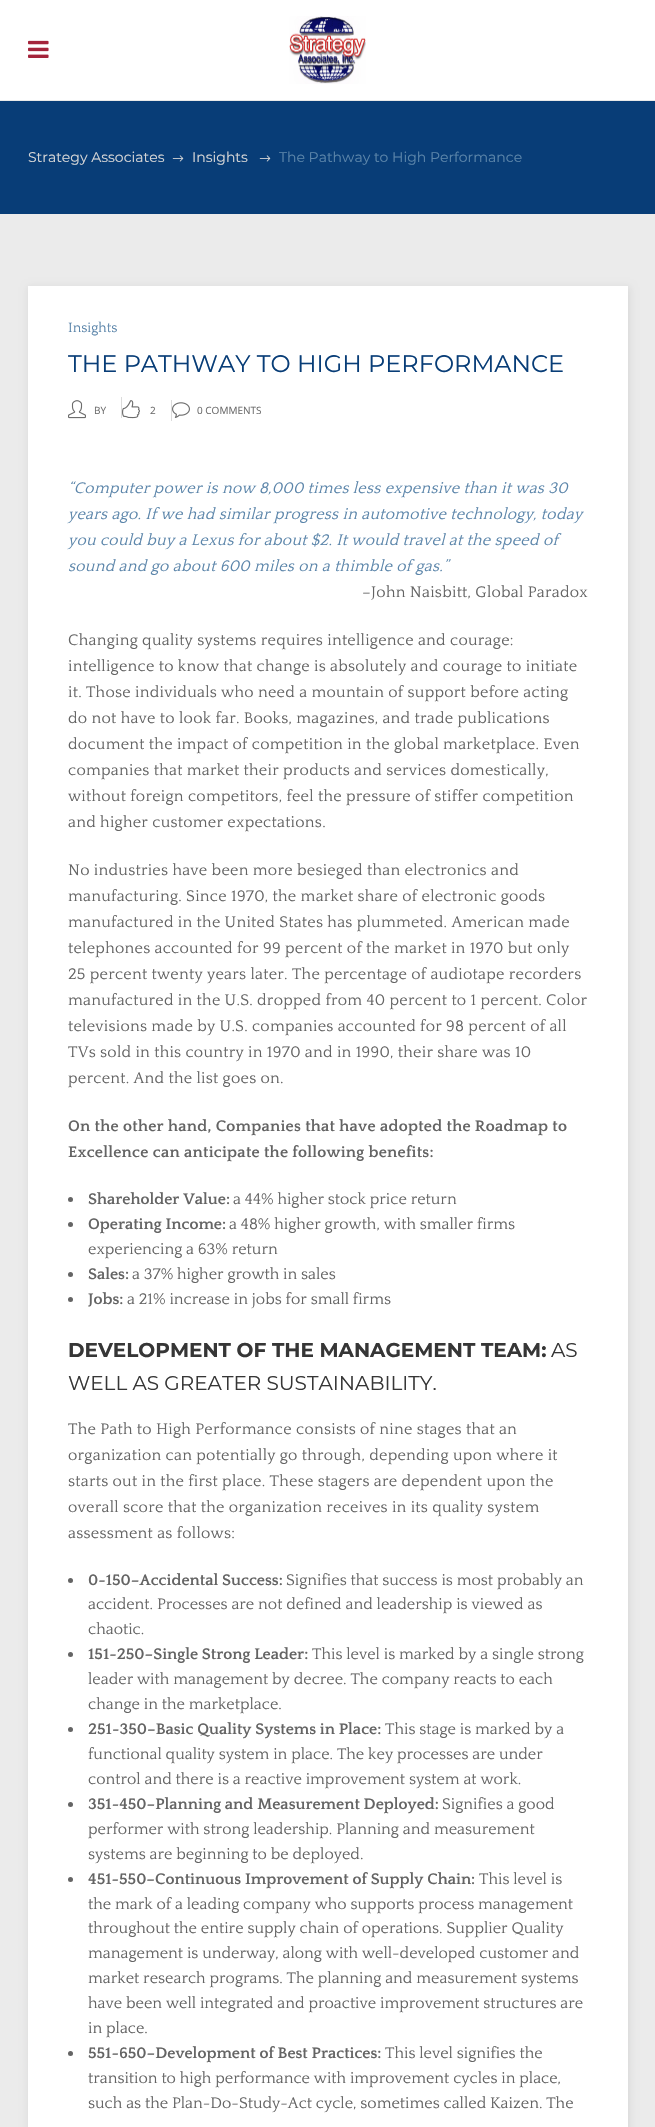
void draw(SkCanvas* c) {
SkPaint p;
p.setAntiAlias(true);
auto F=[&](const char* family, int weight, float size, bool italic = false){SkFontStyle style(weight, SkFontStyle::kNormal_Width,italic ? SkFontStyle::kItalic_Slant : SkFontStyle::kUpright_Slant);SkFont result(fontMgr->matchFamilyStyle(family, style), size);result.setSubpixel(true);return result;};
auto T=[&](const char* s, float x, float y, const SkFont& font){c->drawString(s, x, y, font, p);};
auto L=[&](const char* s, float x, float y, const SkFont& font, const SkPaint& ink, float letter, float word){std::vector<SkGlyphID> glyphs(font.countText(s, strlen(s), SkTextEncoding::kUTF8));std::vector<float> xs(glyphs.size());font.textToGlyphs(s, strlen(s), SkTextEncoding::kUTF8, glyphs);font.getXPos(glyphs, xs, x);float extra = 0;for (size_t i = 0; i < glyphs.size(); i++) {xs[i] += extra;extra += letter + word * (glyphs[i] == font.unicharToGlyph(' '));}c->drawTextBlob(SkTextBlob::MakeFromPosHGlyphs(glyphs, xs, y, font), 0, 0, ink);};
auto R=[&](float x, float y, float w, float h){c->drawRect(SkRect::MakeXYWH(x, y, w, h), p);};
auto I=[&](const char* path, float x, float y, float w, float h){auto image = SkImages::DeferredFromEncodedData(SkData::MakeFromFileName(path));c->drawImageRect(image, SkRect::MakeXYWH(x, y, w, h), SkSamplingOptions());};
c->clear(0xffebebeb);
p.setColor(0xffe9e9e8);
R(0,100,655,1);
p.setColor(0xffffffff);
R(0,0,655,100);
I("1.png",28,40,21,18);
I("2.png",289,16,77,68);
p.setColor(0xff083d77);
R(0,101,655,113);
auto f1 = F("Montserrat",400,14);
p.setColor(0xffd7d7d7);
T("Strategy Associates",28,162,f1);
I("3.png",172,155,12,7);
T("Insights",192,162,f1);
I("3.png",259,155,12,7);
p.setColor(0xff5b85aa);
T("The Pathway to High Performance",279,162,f1);
p.setColor(0x14000000);
p.setMaskFilter(SkMaskFilter::MakeBlur(kNormal_SkBlurStyle, 3.5));
c->drawRect(SkRect::MakeXYWH(28,287,602,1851),p);
p.setMaskFilter(nullptr);
p.setColor(0xffffffff);
R(28,286,600,1841);
auto f2 = F("Quattrocento",400,14);
p.setColor(0xff5b85aa);
T("Insights",68,332,f2);
auto f3 = F("Montserrat",400,24);
p.setColor(0xff083d77);
T("THE PATHWAY TO HIGH PERFORMANCE",68,372,f3);
p.setColor(0xffdbdbdb);
R(121,397,1,21);
I("4.png",68,400,18,19);
auto f4 = F("Open Sans",400,10);
p.setColor(0xff6c6c6c);
T("BY",94,414,f4);
p.setColor(0xffdbdbdb);
R(171,400,1,21);
I("5.png",122,400,18,19);
p.setColor(0xff6c6c6c);
T("2",150,414,f4);
I("6.png",172,402,18,16);
T("0 COMMENTS",197,414,f4);
auto f5 = F("Quattrocento",400,16,true);
p.setColor(0xff5b85aa);
L("“Computer power is now 8,000 times less expensive than it was 30",68,493,f5,p,.25,0);
L("years ago. If we had similar progress in automotive technology, today",68,519,f5,p,.25,0);
L("you could buy a Lexus for about $2. It would travel at the speed of",68,545,f5,p,.25,0);
L("sound and go about 600 miles on a thimble of gas.”",68,571,f5,p,.25,0);
auto f6 = F("Quattrocento",400,16);
p.setColor(0xff646464);
L("–John Naisbitt, Global Paradox",362,597,f6,p,.25,0);
L("Changing quality systems requires intelligence and courage:",68,645,f6,p,.25,0);
L("intelligence to know that change is absolutely and courage to initiate",68,671,f6,p,.25,0);
L("it. Those individuals who need a mountain of support before acting",68,697,f6,p,.25,0);
L("do not have to look far. Books, magazines, and trade publications",68,723,f6,p,.25,0);
L("document the impact of competition in the global marketplace. Even",68,749,f6,p,.25,0);
L("companies that market their products and services domestically,",68,775,f6,p,.25,0);
L("without foreign competitors, feel the pressure of stiffer competition",68,801,f6,p,.25,0);
L("and higher customer expectations.",68,827,f6,p,.25,0);
L("No industries have been more besieged than electronics and",68,875,f6,p,.25,0);
L("manufacturing. Since 1970, the market share of electronic goods",68,901,f6,p,.25,0);
L("manufactured in the United States has plummeted. American made",68,927,f6,p,.25,0);
L("telephones accounted for 99 percent of the market in 1970 but only",68,953,f6,p,.25,0);
L("25 percent twenty years later. The percentage of audiotape recorders",68,979,f6,p,.25,0);
L("manufactured in the U.S. dropped from 40 percent to 1 percent. Color",68,1005,f6,p,.25,0);
L("televisions made by U.S. companies accounted for 98 percent of all",68,1031,f6,p,.25,0);
L("TVs sold in this country in 1970 and in 1990, their share was 10",68,1057,f6,p,.25,0);
L("percent. And the list goes on.",68,1083,f6,p,.25,0);
auto f7 = F("Quattrocento",700,16);
L("On the other hand, Companies that have adopted the Roadmap to",68,1131,f7,p,.25,0);
L("Excellence can anticipate the following benefits:",68,1157,f7,p,.25,0);
c->drawCircle(70.5,1199.5,2.5,p);
T("Shareholder Value:",88,1204,f7);
T("a 44% higher stock price return",233,1204,f6);
c->drawCircle(70.5,1224.5,2.5,p);
T("Operating Income:",88,1229,f7);
T("a 48% higher growth, with smaller firms",229,1229,f6);
T("experiencing a 63% return",88,1254,f6);
c->drawCircle(70.5,1274.5,2.5,p);
T("Sales:",88,1279,f7);
T("a 37% higher growth in sales",132,1279,f6);
c->drawCircle(70.5,1299.5,2.5,p);
T("Jobs:",88,1304,f7);
T("a 21% increase in jobs for small firms",127,1304,f6);
auto f8 = F("Montserrat",700,20);
p.setColor(0xff363636);
T("DEVELOPMENT OF THE MANAGEMENT TEAM:",68,1357,f8);
auto f9 = F("Montserrat",400,20);
T("AS",551,1357,f9);
T("WELL AS GREATER SUSTAINABILITY.",68,1390,f9);
p.setColor(0xff646464);
L("The Path to High Performance consists of nine stages that an",68,1434,f6,p,.25,0);
L("organization can potentially go through, depending upon where it",68,1460,f6,p,.25,0);
L("starts out in the first place. These stagers are dependent upon the",68,1486,f6,p,.25,0);
L("overall score that the organization receives in its quality system",68,1512,f6,p,.25,0);
L("assessment as follows:",68,1538,f6,p,.25,0);
c->drawCircle(70.5,1580.5,2.5,p);
T("0-150–Accidental Success:",88,1585,f7);
T("Signifies that success is most probably an",286,1585,f6);
T("accident. Processes are not defined and leadership is viewed as",88,1609,f6);
T("chaotic.",88,1634,f6);
c->drawCircle(70.5,1654.5,2.5,p);
T("151-250–Single Strong Leader:",88,1659,f7);
T("This level is marked by a single strong",312,1659,f6);
T("leader with management by decree. The company reacts to each",88,1684,f6);
T("change in the marketplace.",88,1709,f6);
c->drawCircle(70.5,1729.5,2.5,p);
T("251-350–Basic Quality Systems in Place:",88,1734,f7);
T("This stage is marked by a",385,1734,f6);
T("functional quality system in place. The key processes are under",88,1759,f6);
T("control and there is a reactive improvement system at work.",88,1784,f6);
c->drawCircle(70.5,1804.5,2.5,p);
T("351-450–Planning and Measurement Deployed:",88,1809,f7);
T("Signifies a good",442,1809,f6);
T("performer with strong leadership. Planning and measurement",88,1834,f6);
T("systems are beginning to be deployed.",88,1859,f6);
c->drawCircle(70.5,1879.5,2.5,p);
T("451-550–Continuous Improvement of Supply Chain:",88,1884,f7);
T("This level is",479,1884,f6);
T("the mark of a leading company who supports process management",88,1909,f6);
T("throughout the entire supply chain of operations. Supplier Quality",88,1933,f6);
T("management is underway, along with well-developed customer and",88,1958,f6);
T("market research programs. The planning and measurement systems",88,1983,f6);
T("have been well integrated and proactive improvement structures are",88,2008,f6);
T("in place.",88,2033,f6);
c->drawCircle(70.5,2053.5,2.5,p);
T("551-650–Development of Best Practices:",88,2058,f7);
T("This level signifies the",385,2058,f6);
T("transition to high performance with improvement cycles in place,",88,2083,f6);
T("such as the Plan-Do-Study-Act cycle, sometimes called Kaizen. The",88,2108,f6);
}
